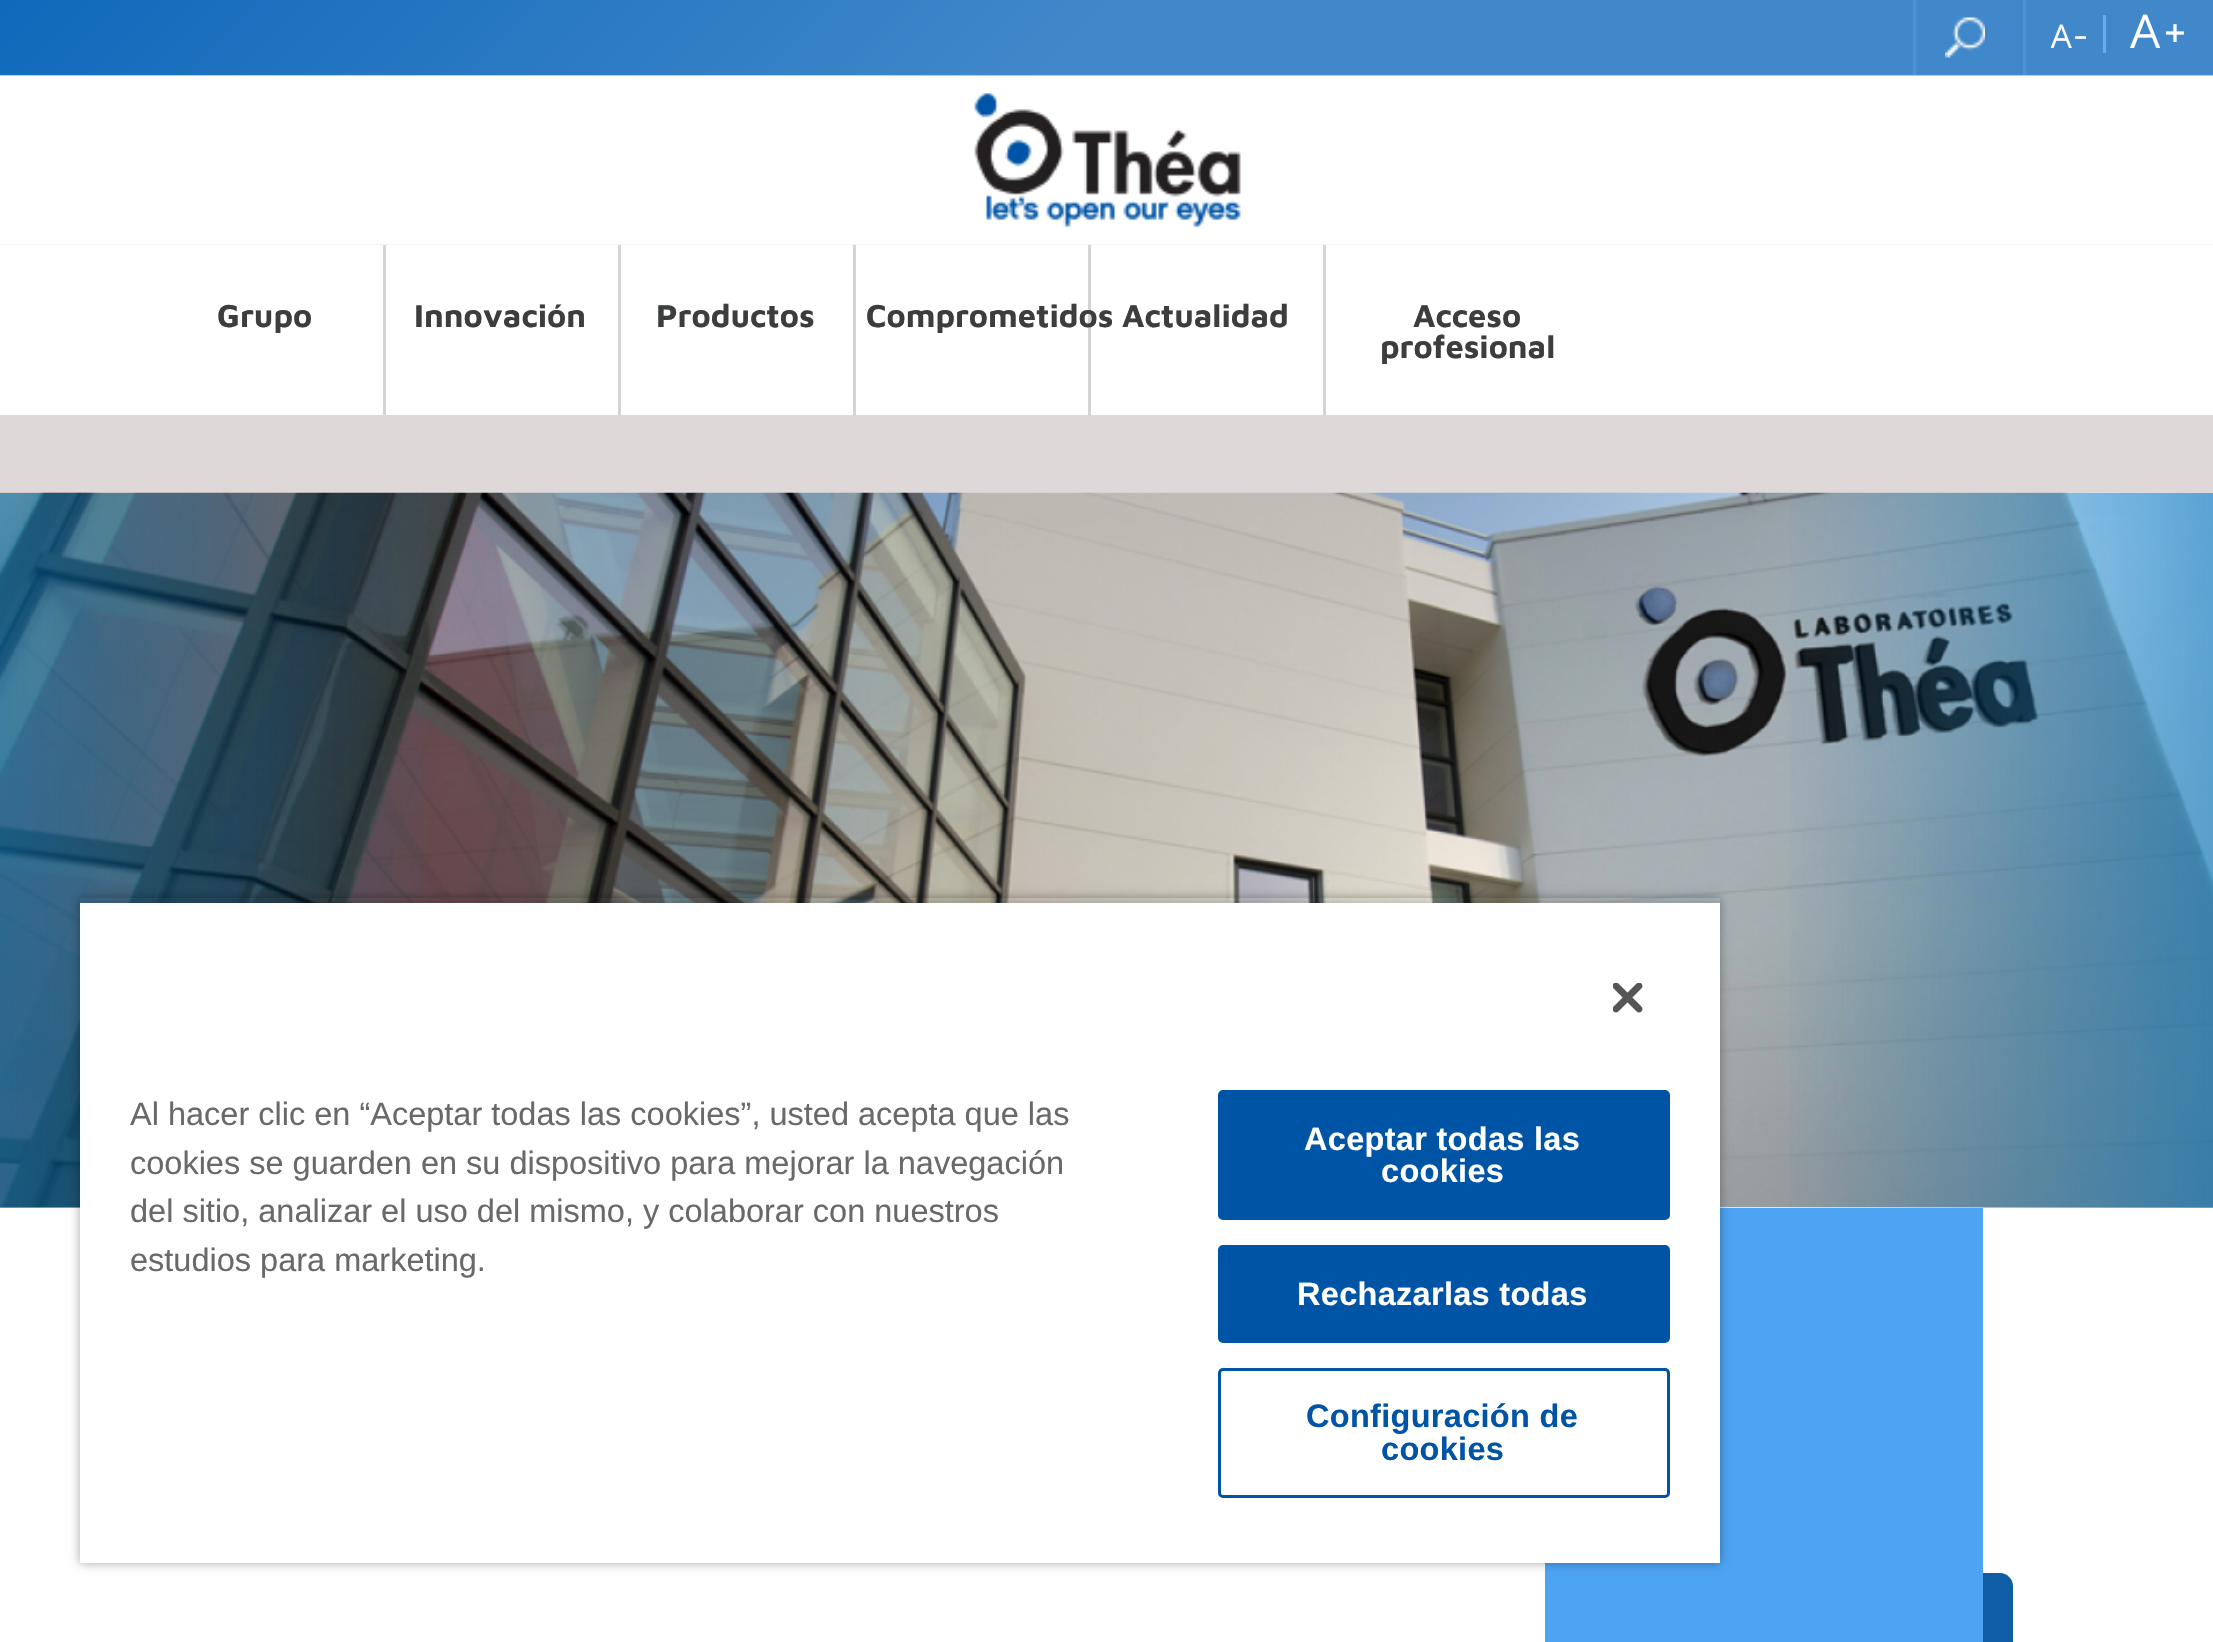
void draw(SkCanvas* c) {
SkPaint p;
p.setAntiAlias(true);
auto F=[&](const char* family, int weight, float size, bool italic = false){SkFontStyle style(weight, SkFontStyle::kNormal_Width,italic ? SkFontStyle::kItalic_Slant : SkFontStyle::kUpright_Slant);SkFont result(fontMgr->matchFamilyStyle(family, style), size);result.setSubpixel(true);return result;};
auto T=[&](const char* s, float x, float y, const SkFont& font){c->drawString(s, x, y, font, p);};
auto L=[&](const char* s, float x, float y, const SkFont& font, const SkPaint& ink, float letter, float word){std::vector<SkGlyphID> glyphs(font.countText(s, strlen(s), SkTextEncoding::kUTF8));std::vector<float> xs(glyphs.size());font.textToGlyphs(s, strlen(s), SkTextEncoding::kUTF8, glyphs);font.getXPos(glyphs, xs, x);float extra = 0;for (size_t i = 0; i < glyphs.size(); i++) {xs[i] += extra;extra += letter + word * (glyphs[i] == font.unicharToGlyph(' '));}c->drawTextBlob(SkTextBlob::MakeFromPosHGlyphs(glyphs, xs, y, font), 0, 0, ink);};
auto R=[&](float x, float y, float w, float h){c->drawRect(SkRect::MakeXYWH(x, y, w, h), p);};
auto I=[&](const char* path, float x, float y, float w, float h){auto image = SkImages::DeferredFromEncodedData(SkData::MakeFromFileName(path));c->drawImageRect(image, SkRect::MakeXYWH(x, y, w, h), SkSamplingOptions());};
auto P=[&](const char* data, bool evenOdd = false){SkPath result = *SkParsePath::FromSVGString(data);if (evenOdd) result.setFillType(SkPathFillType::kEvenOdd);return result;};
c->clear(0xffffffff);
I("1.png",0,75,2213,170);
{
const SkColor colors[] = {0xff1069bb,0xff4188ca};
const float stops[] = {0,.49};
const SkPoint ends[] = {{535,-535}, {1680,610}};
p.setShader(SkGradientShader::MakeLinear(ends, colors, stops, 2, SkTileMode::kClamp));
p.setAlpha(255);
}
R(0,0,2213,75);
p.setShader(nullptr);
p.setColor(0xff5091ce);
R(2023,0,3,75);
R(1913,0,3,75);
I("2.png",1945,17,40,41);
p.setColor(0xff65adef);
R(2103,15,3,38);
auto f1 = F("Maven Pro",400,35);
p.setColor(0xffffffff);
T("A-",2050,48,f1);
auto f2 = F("Maven Pro",400,50);
T("A+",2129,48,f2);
I("3.png",974,93,267,135);
p.setColor(0xffded9d8);
R(0,415,2213,78);
p.setColor(0xffd2d4d5);
R(383,245,3,170);
auto f3 = F("Maven Pro",700,32.5);
p.setColor(0xff3c3d3d);
T("Grupo",217,327,f3);
p.setColor(0xffd2d4d5);
R(618,245,3,170);
p.setColor(0xff3c3d3d);
T("Innovación",414,327,f3);
p.setColor(0xffd2d4d5);
R(853,245,3,170);
p.setColor(0xff3c3d3d);
T("Productos",656,327,f3);
p.setColor(0xffd2d4d5);
R(1088,245,3,170);
p.setColor(0xff3c3d3d);
T("Comprometidos",866,327,f3);
p.setColor(0xffd2d4d5);
R(1323,245,3,170);
p.setColor(0xff3c3d3d);
T("Actualidad",1122,327,f3);
T("Acceso",1413,327,f3);
T("profesional",1380,358,f3);
I("4.png",0,492,2213,716);
{
const SkColor colors[] = {0x990a78bd,0x000a78bd};
const float stops[] = {0,1};
const SkPoint ends[] = {{0,850}, {443,850}};
p.setShader(SkGradientShader::MakeLinear(ends, colors, stops, 2, SkTileMode::kClamp));
p.setAlpha(255);
}
R(0,493,427,715);
{
const SkColor colors[] = {0x000a78bd,0x990a78bd};
const float stops[] = {0,1};
const SkPoint ends[] = {{1773,850}, {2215,850}};
p.setShader(SkGradientShader::MakeLinear(ends, colors, stops, 2, SkTileMode::kClamp));
p.setAlpha(255);
}
R(1789,493,424,715);
p.setShader(nullptr);
p.setColor(0xff0e5da5);
c->drawPath(P("M1621 1573h379c7 0 13 6 13 13v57h-405v-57c0-7 6-13 13-13z"),p);
p.setColor(0xff4da4f3);
R(1545,1208,438,434);
c->save();
c->clipPath(P("M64 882h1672v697h-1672zm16 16h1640v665h-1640z",true),true);
p.setColor(0x59000000);
p.setMaskFilter(SkMaskFilter::MakeBlur(kNormal_SkBlurStyle, 5));
c->drawRect(SkRect::MakeXYWH(80,898,1640,665),p);
p.setMaskFilter(nullptr);
c->restore();
c->save();
c->clipRect(SkRect::MakeXYWH(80,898,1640,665));
p.setColor(0x33000000);
p.setMaskFilter(SkMaskFilter::MakeBlur(kNormal_SkBlurStyle, 5));
c->drawRect(SkRect::MakeXYWH(80,903,1640,660),p);
p.setMaskFilter(nullptr);
c->restore();
p.setColor(0xffffffff);
R(80,903,1640,660);
I("5.png",1613,983,30,30);
auto f4 = F("Liberation Sans",400,32.5);
p.setColor(0xff696969);
T("Al hacer clic en “Aceptar todas las cookies”, usted acepta que las",130,1125,f4);
T("cookies se guarden en su dispositivo para mejorar la navegación",130,1174,f4);
T("del sitio, analizar el uso del mismo, y colaborar con nuestros",130,1222,f4);
T("estudios para marketing.",130,1271,f4);
p.setColor(0xff0054a6);
c->drawRoundRect(SkRect::MakeXYWH(1219.5,1091.5,449,127),3.5,3.5,p);
p.setStroke(true);
p.setStrokeWidth(3);
c->drawRoundRect(SkRect::MakeXYWH(1219.5,1091.5,449,127),3.5,3.5,p);
auto f5 = F("Liberation Sans",700,32.5);
p.setStroke(false);
p.setColor(0xffffffff);
L("Aceptar todas las",1304,1150,f5,p,.3,0);
L("cookies",1381,1182,f5,p,.3,0);
p.setColor(0xff0054a6);
c->drawRoundRect(SkRect::MakeXYWH(1219.5,1246.5,449,95),3.5,3.5,p);
p.setStroke(true);
c->drawRoundRect(SkRect::MakeXYWH(1219.5,1246.5,449,95),3.5,3.5,p);
p.setStroke(false);
p.setColor(0xffffffff);
L("Rechazarlas todas",1297,1305,f5,p,.3,0);
p.setStroke(true);
p.setColor(0xff0054a6);
c->drawRoundRect(SkRect::MakeXYWH(1219.5,1369.5,449,127),3.5,3.5,p);
p.setStroke(false);
L("Configuración de",1306,1427,f5,p,.3,0);
L("cookies",1381,1460,f5,p,.3,0);
}
